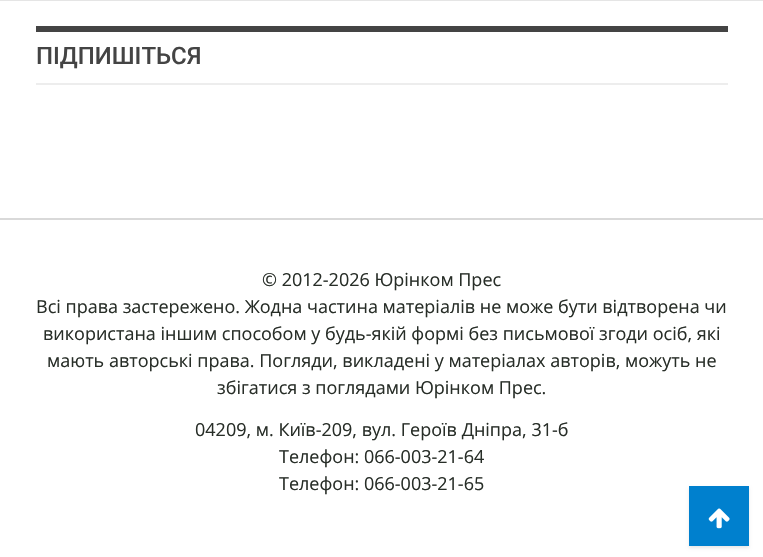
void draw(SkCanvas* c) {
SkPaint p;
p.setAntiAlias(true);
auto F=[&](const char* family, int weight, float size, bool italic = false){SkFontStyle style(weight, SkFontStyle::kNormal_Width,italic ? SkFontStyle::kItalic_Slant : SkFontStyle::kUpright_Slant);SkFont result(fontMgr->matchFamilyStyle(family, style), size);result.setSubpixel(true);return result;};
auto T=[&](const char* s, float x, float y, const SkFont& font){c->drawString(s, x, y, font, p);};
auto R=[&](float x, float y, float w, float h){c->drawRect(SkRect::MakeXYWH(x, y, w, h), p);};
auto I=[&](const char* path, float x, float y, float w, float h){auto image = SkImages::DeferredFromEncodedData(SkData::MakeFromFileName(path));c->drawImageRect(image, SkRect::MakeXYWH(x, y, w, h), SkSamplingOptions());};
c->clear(0xffffffff);
p.setColor(0xffe5e5e5);
R(0,0,763,1);
p.setColor(0xff444444);
R(36,26,692,6);
auto f1 = F("Roboto",500,24);
T("ПІДПИШІТЬСЯ",36,64,f1);
p.setColor(0xffededed);
R(36,83,692,2);
p.setColor(0xffd9d9d9);
R(0,218,763,2);
auto f2 = F("Open Sans",400,18);
p.setColor(0xff282e28);
T("© 2012-2026 Юрінком Прес",262,286,f2);
T("Всi права застережено. Жодна частина матерiалiв не може бути вiдтворена чи",36,313,f2);
T("використана iншим способом у будь-якiй формi без письмової згоди осiб, якi",43,340,f2);
T("мають авторськi права. Погляди, викладенi у матерiалах авторiв, можуть не",47,367,f2);
T("збiгатися з поглядами Юрінком Прес.",217,394,f2);
T("04209, м. Київ-209, вул. Героїв Дніпра, 31-б",195,436,f2);
T("Телефон: 066-003-21-64",279,463,f2);
T("Телефон: 066-003-21-65",279,490,f2);
p.setColor(0x17000000);
p.setMaskFilter(SkMaskFilter::MakeBlur(kNormal_SkBlurStyle, 1.5));
c->drawRect(SkRect::MakeXYWH(689,488,60,60),p);
p.setMaskFilter(nullptr);
p.setColor(0xff0080ce);
R(689,486,60,60);
I("1.png",708,508,22,21);
}
